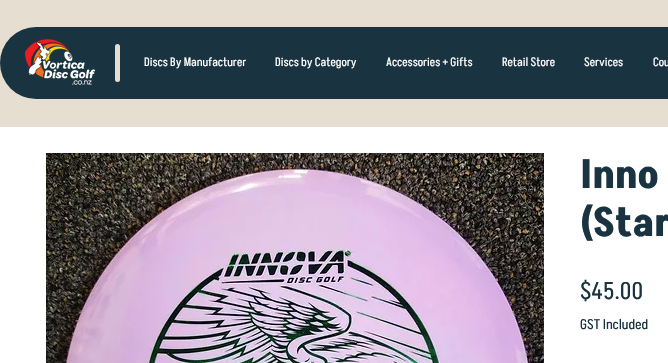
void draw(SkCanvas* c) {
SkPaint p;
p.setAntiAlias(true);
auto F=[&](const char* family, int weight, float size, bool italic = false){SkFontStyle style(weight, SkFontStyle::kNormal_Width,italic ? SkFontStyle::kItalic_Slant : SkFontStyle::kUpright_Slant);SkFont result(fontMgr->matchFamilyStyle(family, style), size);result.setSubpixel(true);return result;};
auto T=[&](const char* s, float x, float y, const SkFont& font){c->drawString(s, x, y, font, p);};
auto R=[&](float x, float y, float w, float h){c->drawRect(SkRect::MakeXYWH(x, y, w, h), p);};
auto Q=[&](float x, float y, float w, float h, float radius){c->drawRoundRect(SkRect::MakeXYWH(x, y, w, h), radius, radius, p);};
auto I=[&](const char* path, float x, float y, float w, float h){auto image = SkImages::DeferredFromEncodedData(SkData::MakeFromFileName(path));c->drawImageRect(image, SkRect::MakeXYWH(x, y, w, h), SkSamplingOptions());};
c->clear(0xffe6ded1);
p.setColor(0xff193340);
Q(0,27,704,72,36);
I("1.png",25,39,70,46);
p.setColor(0xffe6ded1);
Q(115,44,5,38,2.5);
auto f1 = F("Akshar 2",400,12);
p.setColor(0xffffffff);
T("Discs By Manufacturer",144,66,f1);
T("Discs by Category",275,66,f1);
T("Accessories + Gifts",386,66,f1);
T("Retail Store",502,66,f1);
T("Services",584,66,f1);
T("Cou",653,66,f1);
R(0,127,668,236);
I("2.png",46,153,498,210);
auto f2 = F("Akshar",700,40);
p.setColor(0xff193340);
T("Inno",580,188,f2);
T("(Star",580,236,f2);
auto f3 = F("Akshar",400,24);
T("$45.00",580,299,f3);
auto f4 = F("Akshar",400,14);
T("GST Included",580,329,f4);
}
